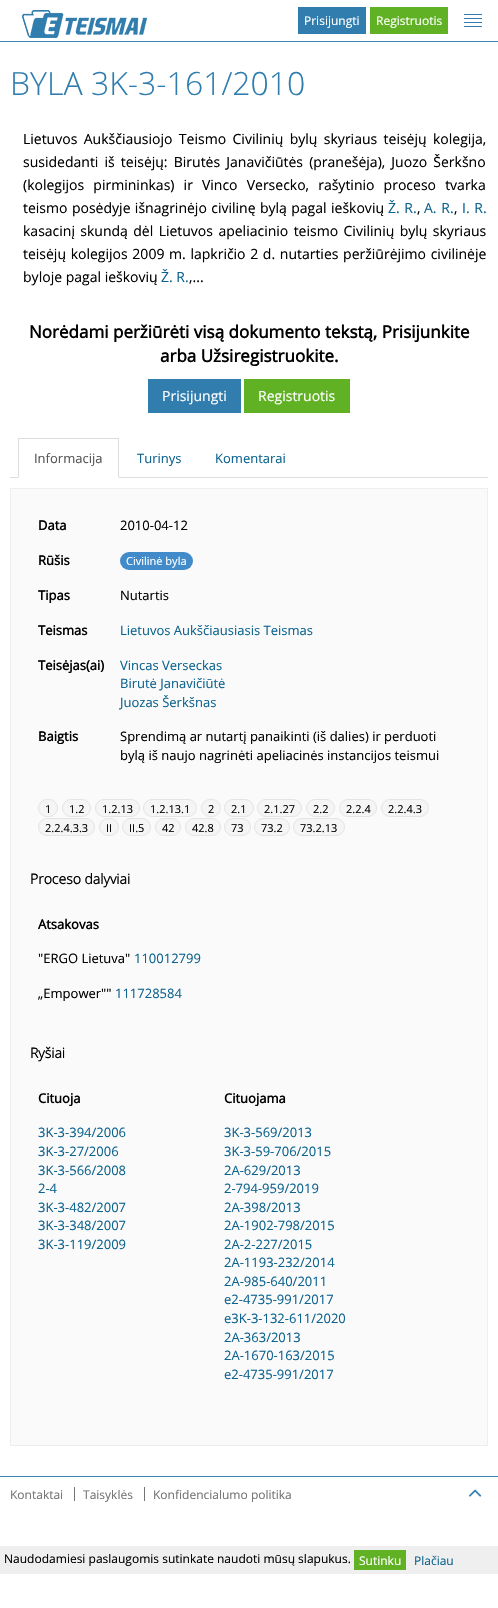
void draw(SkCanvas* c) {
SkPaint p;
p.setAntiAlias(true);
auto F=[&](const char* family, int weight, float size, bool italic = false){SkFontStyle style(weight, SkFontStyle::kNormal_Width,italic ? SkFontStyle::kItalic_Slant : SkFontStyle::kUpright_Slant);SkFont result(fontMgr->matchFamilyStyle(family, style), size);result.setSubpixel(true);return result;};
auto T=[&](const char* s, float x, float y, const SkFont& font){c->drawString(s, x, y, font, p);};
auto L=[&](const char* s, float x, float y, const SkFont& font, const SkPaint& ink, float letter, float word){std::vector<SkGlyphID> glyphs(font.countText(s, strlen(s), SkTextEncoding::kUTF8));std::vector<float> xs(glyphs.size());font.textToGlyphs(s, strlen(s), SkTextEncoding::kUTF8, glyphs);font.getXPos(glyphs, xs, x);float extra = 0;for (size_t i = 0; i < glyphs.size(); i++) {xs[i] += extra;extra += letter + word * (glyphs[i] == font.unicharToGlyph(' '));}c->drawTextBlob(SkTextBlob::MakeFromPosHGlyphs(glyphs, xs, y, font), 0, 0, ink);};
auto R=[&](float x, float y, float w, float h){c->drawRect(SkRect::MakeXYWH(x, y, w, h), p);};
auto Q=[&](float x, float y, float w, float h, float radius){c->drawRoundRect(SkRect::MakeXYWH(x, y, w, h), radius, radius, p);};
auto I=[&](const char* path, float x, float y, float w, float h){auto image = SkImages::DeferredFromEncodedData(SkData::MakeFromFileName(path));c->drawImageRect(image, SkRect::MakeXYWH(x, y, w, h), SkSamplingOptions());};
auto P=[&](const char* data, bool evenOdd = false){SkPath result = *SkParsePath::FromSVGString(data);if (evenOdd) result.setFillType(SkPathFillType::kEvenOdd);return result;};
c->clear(0xffffffff);
p.setColor(0xff3c86b8);
R(0,41,498,1);
I("1.png",22,10,125,28);
p.setColor(0xff307dae);
R(298,7,68,27);
auto f1 = F("Open Sans",400,12);
p.setColor(0xffffffff);
T("Prisijungti",304,25,f1);
p.setColor(0xff60b123);
R(370,7,78,27);
p.setColor(0xffffffff);
T("Registruotis",376,25,f1);
I("2.png",464,14,18,13);
auto f2 = F("Open Sans",300,32);
p.setColor(0xff2f7dae);
T("BYLA 3K-3-161/2010",10,95,f2);
auto f3 = F("Open Sans",400,14);
p.setColor(0xff000000);
L("Lietuvos Aukščiausiojo Teismo Civilinių bylų skyriaus teisėjų kolegija,",23,144,f3,p,0,2.75);
L("susidedanti iš teisėjų: Birutės Janavičiūtės (pranešėja), Juozo Šerkšno",23,167,f3,p,0,2.5);
L("(kolegijos pirmininkas) ir Vinco Versecko, rašytinio proceso tvarka",23,190,f3,p,0,5.5);
L("teismo posėdyje išnagrinėjo civilinę bylą pagal ieškovių",23,213,f3,p,0,.75);
p.setColor(0xff0d638f);
L("Ž. R.",388,213,f3,p,0,1);
p.setColor(0xff000000);
T(",",417,213,f3);
p.setColor(0xff0d638f);
L("A. R.",424,213,f3,p,0,1);
p.setColor(0xff000000);
T(",",454,213,f3);
p.setColor(0xff0d638f);
L("I. R.",462,213,f3,p,0,1);
p.setColor(0xff000000);
L("kasacinį skundą dėl Lietuvos apeliacinio teismo Civilinių bylų skyriaus",23,236,f3,p,0,1.75);
L("teisėjų kolegijos 2009 m. lapkričio 2 d. nutarties peržiūrėjimo civilinėje",23,259,f3,p,0,1);
T("byloje pagal ieškovių",23,282,f3);
p.setColor(0xff0d638f);
T("Ž. R.",161,282,f3);
p.setColor(0xff000000);
T(",...",189,282,f3);
auto f4 = F("Open Sans",700,17);
T("Norėdami peržiūrėti visą dokumento tekstą, Prisijunkite",29,338,f4);
T("arba Užsiregistruokite.",160,362,f4);
p.setColor(0xff307dae);
R(148,379,93,34);
p.setColor(0xffffffff);
T("Prisijungti",162,401,f3);
p.setColor(0xff60b123);
R(244,379,106,34);
p.setColor(0xffffffff);
T("Registruotis",258,401,f3);
p.setColor(0xffdddddd);
R(10,477,478,1);
p.setColor(0xffffffff);
R(18,477,101,1);
p.setColor(0xffdddddd);
R(18,438,101,1);
c->drawPath(P("M119 438v40l-1-1v-38z"),p);
c->drawPath(P("M18 478v-40l1 1v38z"),p);
auto f5 = F("Open Sans",400,13);
p.setColor(0xff555555);
T("Informacija",34,463,f5);
p.setColor(0xff0d638f);
T("Turinys",137,463,f5);
T("Komentarai",215,463,f5);
p.setColor(0xfffafafa);
c->drawRect(SkRect::MakeXYWH(10.5,488.5,477,957),p);
p.setStroke(true);
p.setStrokeWidth(1);
p.setColor(0xffeeeeee);
c->drawRect(SkRect::MakeXYWH(10.5,488.5,477,957),p);
auto f6 = F("Open Sans",700,13);
p.setStroke(false);
p.setColor(0xff000000);
T("Data",38,530,f6);
T("2010-04-12",120,530,f5);
T("Rūšis",38,565,f6);
p.setColor(0xff428bca);
Q(120,552,73,18,9);
auto f7 = F("Open Sans",400,11);
p.setColor(0xffffffff);
T("Civilinė byla",126,565,f7);
p.setColor(0xff000000);
T("Tipas",38,600,f6);
T("Nutartis",120,600,f5);
T("Teismas",38,635,f6);
p.setColor(0xff0d638f);
T("Lietuvos Aukščiausiasis Teismas",120,635,f5);
p.setColor(0xff000000);
T("Teisėjas(ai)",38,670,f6);
p.setColor(0xff0d638f);
T("Vincas Verseckas",120,670,f5);
T("Birutė Janavičiūtė",120,688,f5);
T("Juozas Šerkšnas",120,707,f5);
p.setColor(0xff000000);
T("Baigtis",38,741,f6);
T("Sprendimą ar nutartį panaikinti (iš dalies) ir perduoti",120,741,f5);
T("bylą iš naujo nagrinėti apeliacinės instancijos teismui",120,760,f5);
p.setColor(0xfff5f5f5);
c->drawRoundRect(SkRect::MakeXYWH(38.5,799.5,19,17),8.5,8.5,p);
p.setStroke(true);
p.setColor(0xffe4e4e4);
c->drawRoundRect(SkRect::MakeXYWH(38.5,799.5,19,17),8.5,8.5,p);
p.setStroke(false);
p.setColor(0xff000000);
T("1",45,813,f7);
p.setColor(0xfff5f5f5);
c->drawRoundRect(SkRect::MakeXYWH(62.5,799.5,28,17),8.5,8.5,p);
p.setStroke(true);
p.setColor(0xffe4e4e4);
c->drawRoundRect(SkRect::MakeXYWH(62.5,799.5,28,17),8.5,8.5,p);
p.setStroke(false);
p.setColor(0xff000000);
T("1.2",69,813,f7);
p.setColor(0xfff5f5f5);
c->drawRoundRect(SkRect::MakeXYWH(95.5,799.5,44,17),8.5,8.5,p);
p.setStroke(true);
p.setColor(0xffe4e4e4);
c->drawRoundRect(SkRect::MakeXYWH(95.5,799.5,44,17),8.5,8.5,p);
p.setStroke(false);
p.setColor(0xff000000);
T("1.2.13",102,813,f7);
p.setColor(0xfff5f5f5);
c->drawRoundRect(SkRect::MakeXYWH(143.5,799.5,53,17),8.5,8.5,p);
p.setStroke(true);
p.setColor(0xffe4e4e4);
c->drawRoundRect(SkRect::MakeXYWH(143.5,799.5,53,17),8.5,8.5,p);
p.setStroke(false);
p.setColor(0xff000000);
T("1.2.13.1",150,813,f7);
p.setColor(0xfff5f5f5);
c->drawRoundRect(SkRect::MakeXYWH(201.5,799.5,19,17),8.5,8.5,p);
p.setStroke(true);
p.setColor(0xffe4e4e4);
c->drawRoundRect(SkRect::MakeXYWH(201.5,799.5,19,17),8.5,8.5,p);
p.setStroke(false);
p.setColor(0xff000000);
T("2",208,813,f7);
p.setColor(0xfff5f5f5);
c->drawRoundRect(SkRect::MakeXYWH(224.5,799.5,29,17),8.5,8.5,p);
p.setStroke(true);
p.setColor(0xffe4e4e4);
c->drawRoundRect(SkRect::MakeXYWH(224.5,799.5,29,17),8.5,8.5,p);
p.setStroke(false);
p.setColor(0xff000000);
T("2.1",231,813,f7);
p.setColor(0xfff5f5f5);
c->drawRoundRect(SkRect::MakeXYWH(257.5,799.5,44,17),8.5,8.5,p);
p.setStroke(true);
p.setColor(0xffe4e4e4);
c->drawRoundRect(SkRect::MakeXYWH(257.5,799.5,44,17),8.5,8.5,p);
p.setStroke(false);
p.setColor(0xff000000);
T("2.1.27",264,813,f7);
p.setColor(0xfff5f5f5);
c->drawRoundRect(SkRect::MakeXYWH(306.5,799.5,28,17),8.5,8.5,p);
p.setStroke(true);
p.setColor(0xffe4e4e4);
c->drawRoundRect(SkRect::MakeXYWH(306.5,799.5,28,17),8.5,8.5,p);
p.setStroke(false);
p.setColor(0xff000000);
T("2.2",313,813,f7);
p.setColor(0xfff5f5f5);
c->drawRoundRect(SkRect::MakeXYWH(339.5,799.5,37,17),8.5,8.5,p);
p.setStroke(true);
p.setColor(0xffe4e4e4);
c->drawRoundRect(SkRect::MakeXYWH(339.5,799.5,37,17),8.5,8.5,p);
p.setStroke(false);
p.setColor(0xff000000);
T("2.2.4",346,813,f7);
p.setColor(0xfff5f5f5);
c->drawRoundRect(SkRect::MakeXYWH(381.5,799.5,47,17),8.5,8.5,p);
p.setStroke(true);
p.setColor(0xffe4e4e4);
c->drawRoundRect(SkRect::MakeXYWH(381.5,799.5,47,17),8.5,8.5,p);
p.setStroke(false);
p.setColor(0xff000000);
T("2.2.4.3",388,813,f7);
p.setColor(0xfff5f5f5);
c->drawRoundRect(SkRect::MakeXYWH(38.5,818.5,56,17),8.5,8.5,p);
p.setStroke(true);
p.setColor(0xffe4e4e4);
c->drawRoundRect(SkRect::MakeXYWH(38.5,818.5,56,17),8.5,8.5,p);
p.setStroke(false);
p.setColor(0xff000000);
T("2.2.4.3.3",45,832,f7);
p.setColor(0xfff5f5f5);
c->drawRoundRect(SkRect::MakeXYWH(99.5,818.5,19,17),8.5,8.5,p);
p.setStroke(true);
p.setColor(0xffe4e4e4);
c->drawRoundRect(SkRect::MakeXYWH(99.5,818.5,19,17),8.5,8.5,p);
p.setStroke(false);
p.setColor(0xff000000);
T("II",106,832,f7);
p.setColor(0xfff5f5f5);
c->drawRoundRect(SkRect::MakeXYWH(122.5,818.5,28,17),8.5,8.5,p);
p.setStroke(true);
p.setColor(0xffe4e4e4);
c->drawRoundRect(SkRect::MakeXYWH(122.5,818.5,28,17),8.5,8.5,p);
p.setStroke(false);
p.setColor(0xff000000);
T("II.5",129,832,f7);
p.setColor(0xfff5f5f5);
c->drawRoundRect(SkRect::MakeXYWH(155.5,818.5,25,17),8.5,8.5,p);
p.setStroke(true);
p.setColor(0xffe4e4e4);
c->drawRoundRect(SkRect::MakeXYWH(155.5,818.5,25,17),8.5,8.5,p);
p.setStroke(false);
p.setColor(0xff000000);
T("42",162,832,f7);
p.setColor(0xfff5f5f5);
c->drawRoundRect(SkRect::MakeXYWH(185.5,818.5,35,17),8.5,8.5,p);
p.setStroke(true);
p.setColor(0xffe4e4e4);
c->drawRoundRect(SkRect::MakeXYWH(185.5,818.5,35,17),8.5,8.5,p);
p.setStroke(false);
p.setColor(0xff000000);
T("42.8",192,832,f7);
p.setColor(0xfff5f5f5);
c->drawRoundRect(SkRect::MakeXYWH(224.5,818.5,26,17),8.5,8.5,p);
p.setStroke(true);
p.setColor(0xffe4e4e4);
c->drawRoundRect(SkRect::MakeXYWH(224.5,818.5,26,17),8.5,8.5,p);
p.setStroke(false);
p.setColor(0xff000000);
T("73",231,832,f7);
p.setColor(0xfff5f5f5);
c->drawRoundRect(SkRect::MakeXYWH(254.5,818.5,35,17),8.5,8.5,p);
p.setStroke(true);
p.setColor(0xffe4e4e4);
c->drawRoundRect(SkRect::MakeXYWH(254.5,818.5,35,17),8.5,8.5,p);
p.setStroke(false);
p.setColor(0xff000000);
T("73.2",261,832,f7);
p.setColor(0xfff5f5f5);
c->drawRoundRect(SkRect::MakeXYWH(293.5,818.5,51,17),8.5,8.5,p);
p.setStroke(true);
p.setColor(0xffe4e4e4);
c->drawRoundRect(SkRect::MakeXYWH(293.5,818.5,51,17),8.5,8.5,p);
p.setStroke(false);
p.setColor(0xff000000);
T("73.2.13",300,832,f7);
auto f8 = F("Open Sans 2",700,14);
T("Proceso dalyviai",30,884,f8);
T("Atsakovas",38,929,f6);
T("\"ERGO Lietuva\"",38,963,f5);
p.setColor(0xff0d638f);
T("110012799",134,963,f5);
p.setColor(0xff000000);
T("„Empower\"\"",38,998,f5);
p.setColor(0xff0d638f);
T("111728584",115,998,f5);
p.setColor(0xff000000);
T("Ryšiai",30,1058,f8);
T("Cituoja",38,1103,f6);
T("Cituojama",224,1103,f6);
p.setColor(0xff0d638f);
T("3K-3-394/2006",38,1137,f5);
T("3K-3-27/2006",38,1156,f5);
T("3K-3-566/2008",38,1175,f5);
T("2-4",38,1193,f5);
T("3K-3-482/2007",38,1212,f5);
T("3K-3-348/2007",38,1230,f5);
T("3K-3-119/2009",38,1249,f5);
T("3K-3-569/2013",224,1137,f5);
T("3K-3-59-706/2015",224,1156,f5);
T("2A-629/2013",224,1175,f5);
T("2-794-959/2019",224,1193,f5);
T("2A-398/2013",224,1212,f5);
T("2A-1902-798/2015",224,1230,f5);
T("2A-2-227/2015",224,1249,f5);
T("2A-1193-232/2014",224,1267,f5);
T("2A-985-640/2011",224,1286,f5);
T("e2-4735-991/2017",224,1304,f5);
T("e3K-3-132-611/2020",224,1323,f5);
T("2A-363/2013",224,1342,f5);
T("2A-1670-163/2015",224,1360,f5);
T("e2-4735-991/2017",224,1379,f5);
p.setColor(0xff3c86b8);
R(0,1476,498,1);
p.setColor(0xff747474);
T("Kontaktai",10,1499,f1);
R(74,1487,1,14);
T("Taisyklės",83,1499,f1);
R(144,1487,1,14);
T("Konfidencialumo politika",153,1499,f1);
I("3.png",469,1489,13,8);
p.setColor(0xffefefef);
R(0,1546,498,28);
p.setColor(0xff000000);
T("Naudodamiesi paslaugomis sutinkate naudoti mūsų slapukus.",4,1563,f1);
p.setColor(0xff60b123);
R(354,1550,52,20);
p.setColor(0xffffffff);
T("Sutinku",359,1565,f1);
p.setColor(0xff0d638f);
T("Plačiau",414,1565,f1);
}
